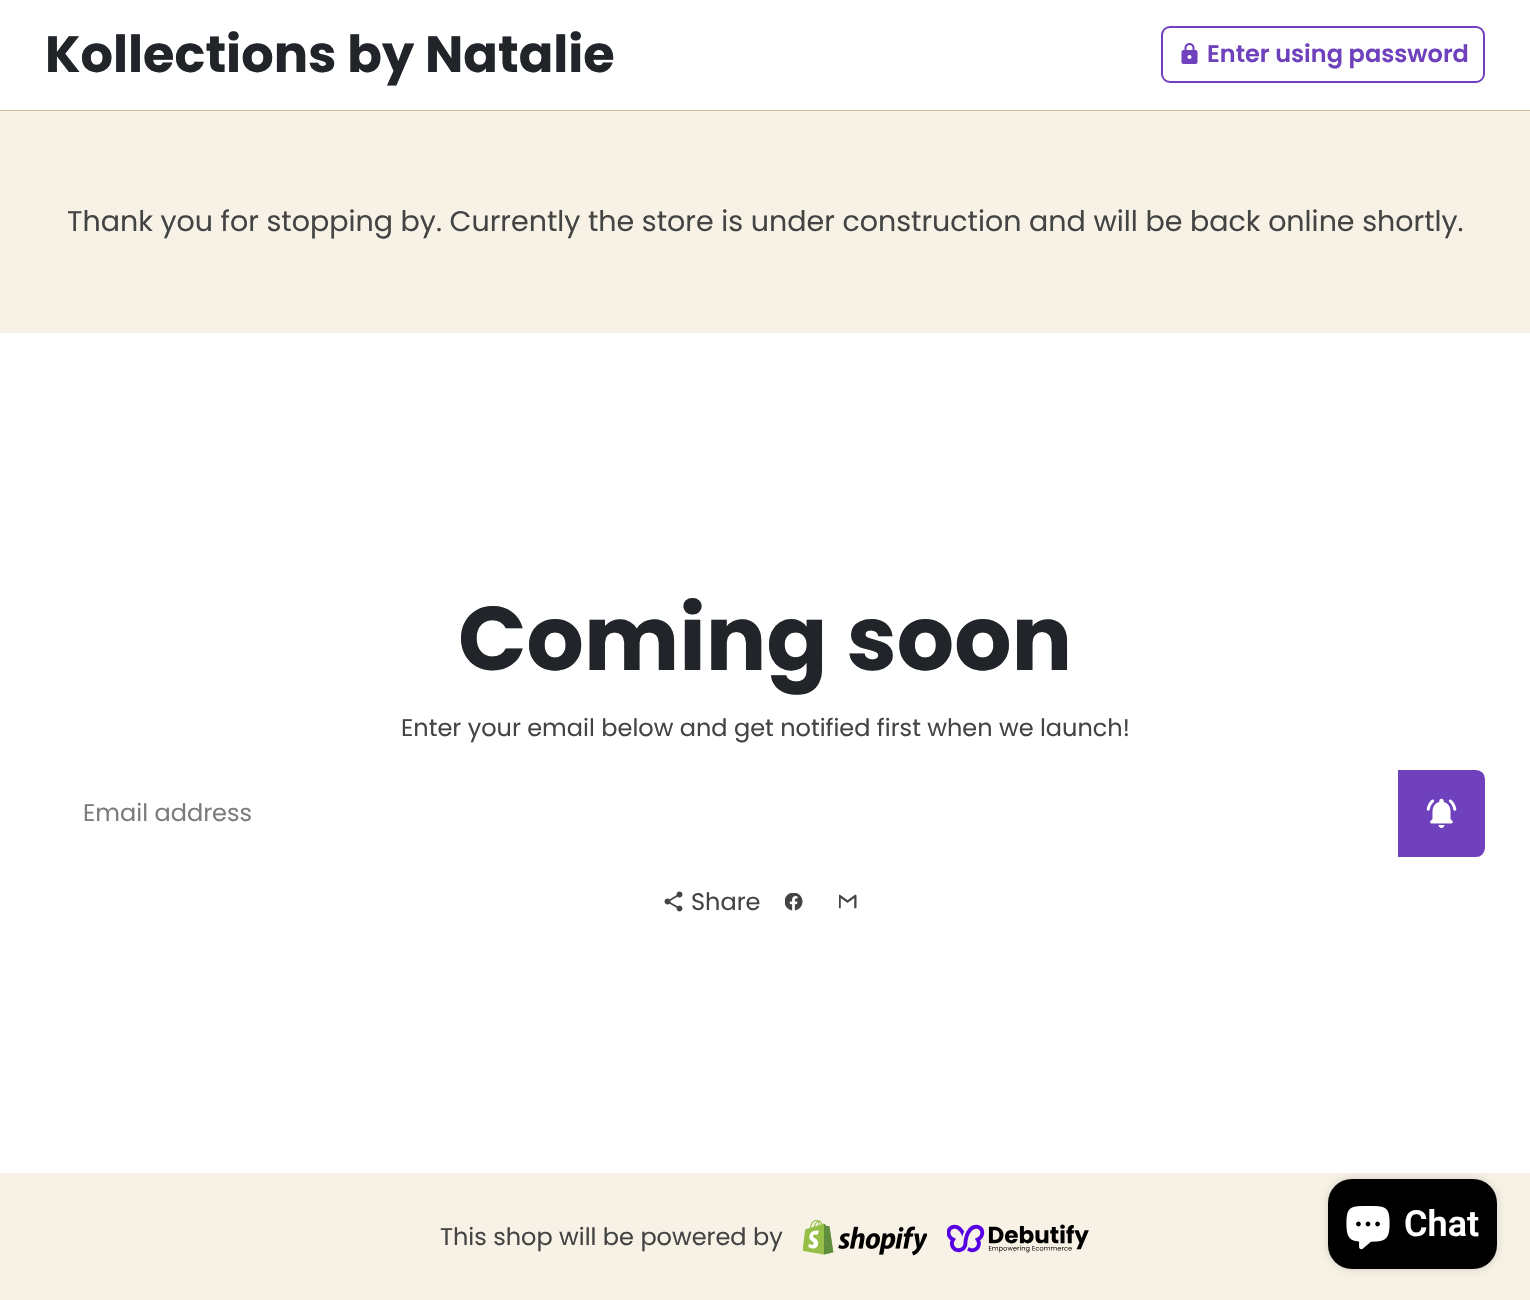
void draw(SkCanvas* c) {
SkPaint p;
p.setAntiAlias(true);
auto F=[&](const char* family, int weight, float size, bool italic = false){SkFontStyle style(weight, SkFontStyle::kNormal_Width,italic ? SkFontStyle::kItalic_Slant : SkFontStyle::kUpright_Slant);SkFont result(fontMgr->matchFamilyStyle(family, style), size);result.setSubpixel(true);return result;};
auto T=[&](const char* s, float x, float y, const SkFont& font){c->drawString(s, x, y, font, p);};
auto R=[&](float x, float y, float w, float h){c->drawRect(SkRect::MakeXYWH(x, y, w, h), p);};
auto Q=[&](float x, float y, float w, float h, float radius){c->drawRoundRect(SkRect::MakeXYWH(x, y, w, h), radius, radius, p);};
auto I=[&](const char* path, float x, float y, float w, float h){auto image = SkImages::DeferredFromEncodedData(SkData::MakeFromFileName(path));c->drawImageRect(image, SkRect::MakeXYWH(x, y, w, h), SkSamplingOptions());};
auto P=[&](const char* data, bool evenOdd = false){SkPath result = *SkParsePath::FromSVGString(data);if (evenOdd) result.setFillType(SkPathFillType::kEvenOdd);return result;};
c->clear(0xffffffff);
p.setColor(0xffcebf99);
R(0,110,1530,1);
auto f1 = F("Poppins",700,51);
p.setColor(0xff212529);
T("Kollections by Natalie",45,72,f1);
p.setStroke(true);
p.setStrokeWidth(2);
p.setColor(0xff6f41bc);
c->drawRoundRect(SkRect::MakeXYWH(1162,27,322,55),8,8,p);
I("1.png",1181,43,17,21);
auto f2 = F("Poppins",600,24);
p.setStroke(false);
T("Enter using password",1207,62,f2);
p.setColor(0xfff7f2e5);
R(0,111,1530,222);
auto f3 = F("Poppins",400,28.5);
p.setColor(0xff444444);
T("Thank you for stopping by. Currently the store is under construction and will be back online shortly.",67,231,f3);
auto f4 = F("Poppins",700,90);
p.setColor(0xff212529);
T("Coming soon",458,670,f4);
auto f5 = F("Poppins",400,24);
p.setColor(0xff444444);
T("Enter your email below and get notified first when we launch!",401,736,f5);
p.setColor(0xff7c7c7c);
T("Email address",83,821,f5);
p.setColor(0xff6f41bc);
c->drawPath(P("M1399 771h77c4.5 0 8 3.5 8 8v69c0 4.5-3.5 8-8 8h-77z"),p);
p.setStroke(true);
c->drawPath(P("M1399 771h77c4.5 0 8 3.5 8 8v69c0 4.5-3.5 8-8 8h-77z"),p);
I("2.png",1426,798,31,30);
I("3.png",664,891,19,21);
p.setStroke(false);
p.setColor(0xff444444);
T("Share",691,910,f5);
I("4.png",785,893,18,18);
I("5.png",839,894,18,15);
p.setColor(0xfff7f2e5);
R(0,1173,1530,127);
p.setColor(0xff444444);
T("This shop will be powered by",440,1245,f5);
I("6.png",803,1220,124,36);
I("7.png",947,1224,142,29);
p.setColor(0x26000000);
p.setMaskFilter(SkMaskFilter::MakeBlur(kNormal_SkBlurStyle, 4));
c->drawRoundRect(SkRect::MakeXYWH(1328,1179,169,90),24,24,p);
p.setMaskFilter(nullptr);
p.setColor(0xff000000);
Q(1328,1179,169,90,24);
I("8.png",1346,1206,44,44);
auto f6 = F("Roboto",600,36);
p.setColor(0xffffffff);
T("Chat",1404,1236,f6);
}
